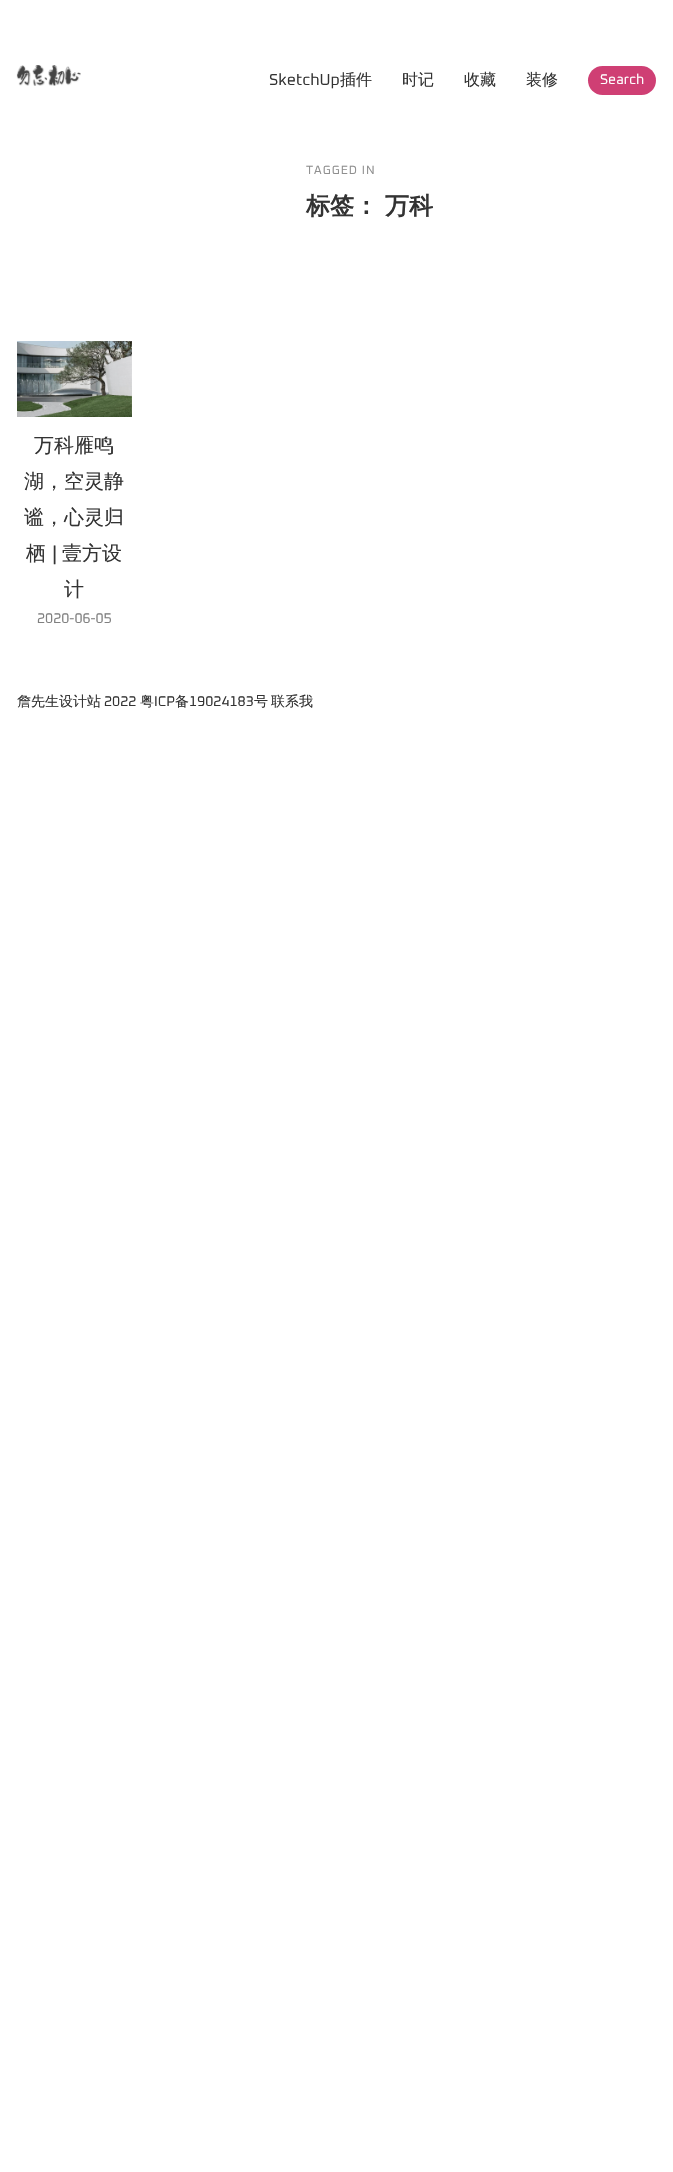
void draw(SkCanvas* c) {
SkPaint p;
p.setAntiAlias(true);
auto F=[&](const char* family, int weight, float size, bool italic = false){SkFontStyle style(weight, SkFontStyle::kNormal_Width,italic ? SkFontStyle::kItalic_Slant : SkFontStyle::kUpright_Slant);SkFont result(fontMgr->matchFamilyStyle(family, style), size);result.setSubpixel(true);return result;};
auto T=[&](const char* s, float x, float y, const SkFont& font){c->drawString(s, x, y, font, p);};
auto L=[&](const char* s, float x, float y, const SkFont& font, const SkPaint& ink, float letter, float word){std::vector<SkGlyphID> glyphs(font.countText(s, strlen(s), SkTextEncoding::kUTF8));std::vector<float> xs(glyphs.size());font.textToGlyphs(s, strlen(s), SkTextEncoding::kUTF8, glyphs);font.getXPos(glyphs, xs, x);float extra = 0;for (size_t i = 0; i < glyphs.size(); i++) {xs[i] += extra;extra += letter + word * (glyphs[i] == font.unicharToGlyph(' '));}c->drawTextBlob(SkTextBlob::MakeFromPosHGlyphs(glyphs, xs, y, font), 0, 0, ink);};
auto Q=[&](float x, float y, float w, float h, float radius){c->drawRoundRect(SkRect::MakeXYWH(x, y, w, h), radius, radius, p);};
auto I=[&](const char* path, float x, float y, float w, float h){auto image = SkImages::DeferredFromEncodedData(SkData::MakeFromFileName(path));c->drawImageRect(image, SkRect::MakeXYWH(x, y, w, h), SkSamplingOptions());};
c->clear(0xffffffff);
I("1.png",16,65,65,21);
auto f1 = F("Oxanium",400,16);
p.setColor(0xff333333);
T("SketchUp",269,85,f1);
auto f2 = F("WenQuanYi Zen Hei",500,16);
T("插件",340,85,f2);
T("时记",402,85,f2);
T("收藏",464,85,f2);
T("装修",526,85,f2);
p.setColor(0xffcf3f74);
Q(588,66,68,29,14.5);
auto f3 = F("Oxanium",400,14);
p.setColor(0xffffffff);
T("Search",600,84,f3);
auto f4 = F("Oxanium",400,12);
p.setColor(0xff8f8f8f);
L("TAGGED IN",306,174,f4,p,1,0);
auto f5 = F("WenQuanYi Zen Hei",700,24);
p.setColor(0xff333333);
T("标签：",306,214,f5);
T("万科",385,214,f5);
I("2.png",17,341,115,76);
auto f6 = F("WenQuanYi Zen Hei",500,20);
T("万科雁鸣",34,452,f6);
T("湖，空灵静",24,488,f6);
T("谧，心灵归",24,524,f6);
T("栖",26,560,f6);
auto f7 = F("Liberation Sans",400,20);
T("|",52,560,f7);
T("壹方设",62,560,f6);
T("计",64,596,f6);
p.setColor(0xff808080);
T("2020-06-05",37,623,f3);
auto f8 = F("WenQuanYi Zen Hei",500,14);
p.setColor(0xff333333);
T("詹先生设计站",17,706,f8);
T("2022",104,706,f3);
T("粤",140,706,f8);
T("ICP",154,706,f3);
T("备",175,706,f8);
T("19024183",189,706,f3);
T("号",254,706,f8);
T("联系我",271,706,f8);
}
